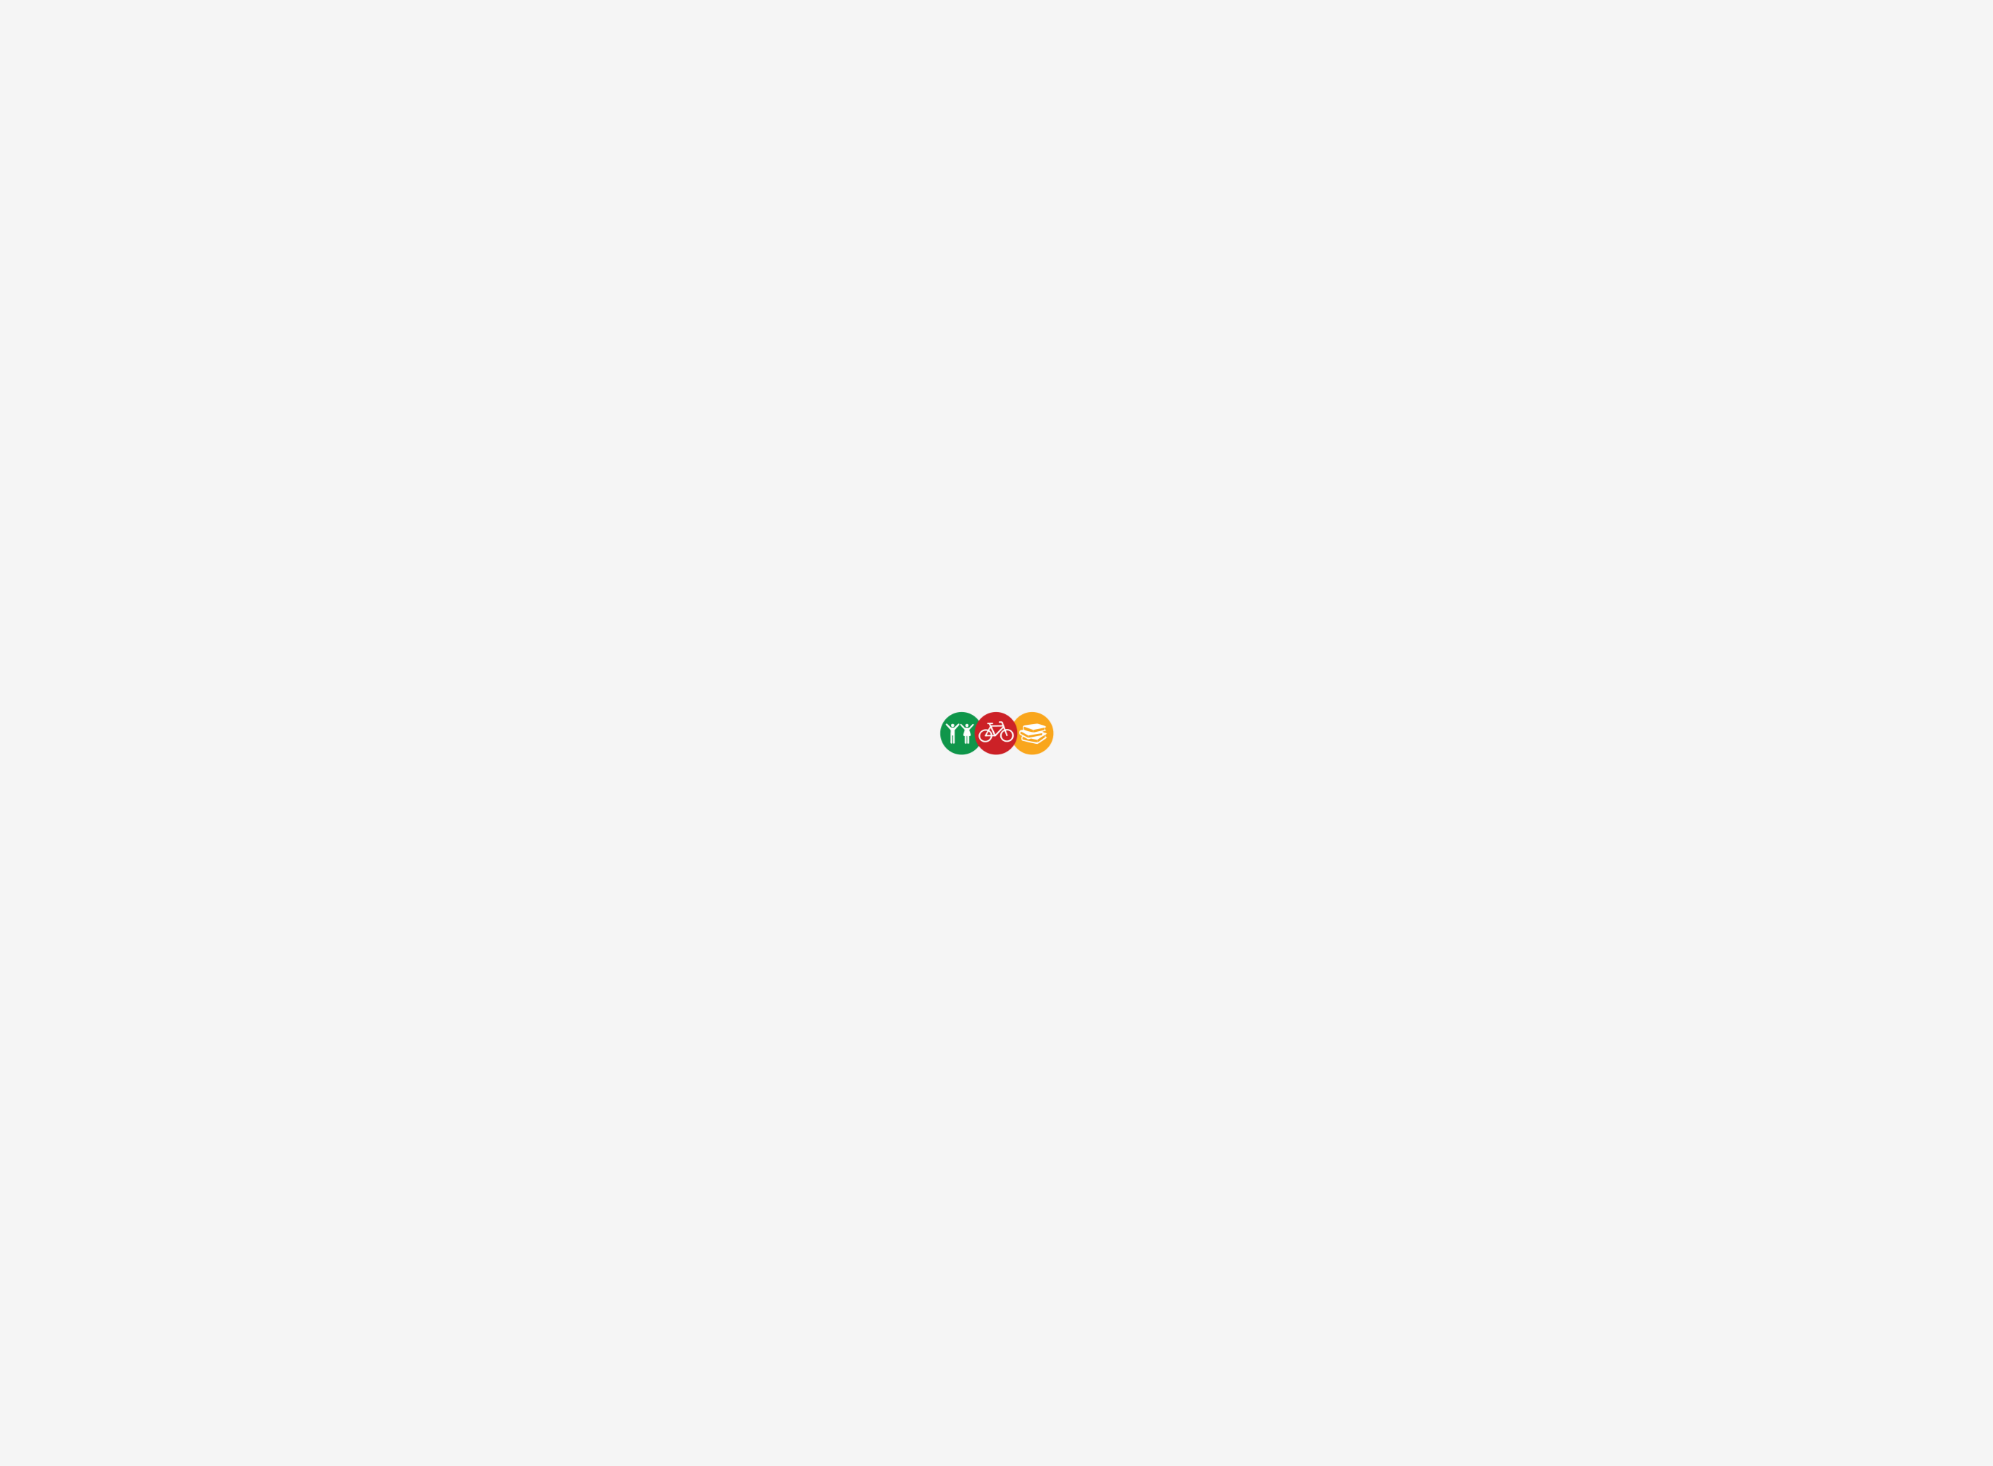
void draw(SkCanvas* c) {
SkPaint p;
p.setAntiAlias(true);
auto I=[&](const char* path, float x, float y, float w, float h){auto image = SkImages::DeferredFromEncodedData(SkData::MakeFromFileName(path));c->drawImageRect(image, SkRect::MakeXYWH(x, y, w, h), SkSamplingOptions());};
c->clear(0xfff5f5f5);
I("1.png",939,711,116,44);
}
